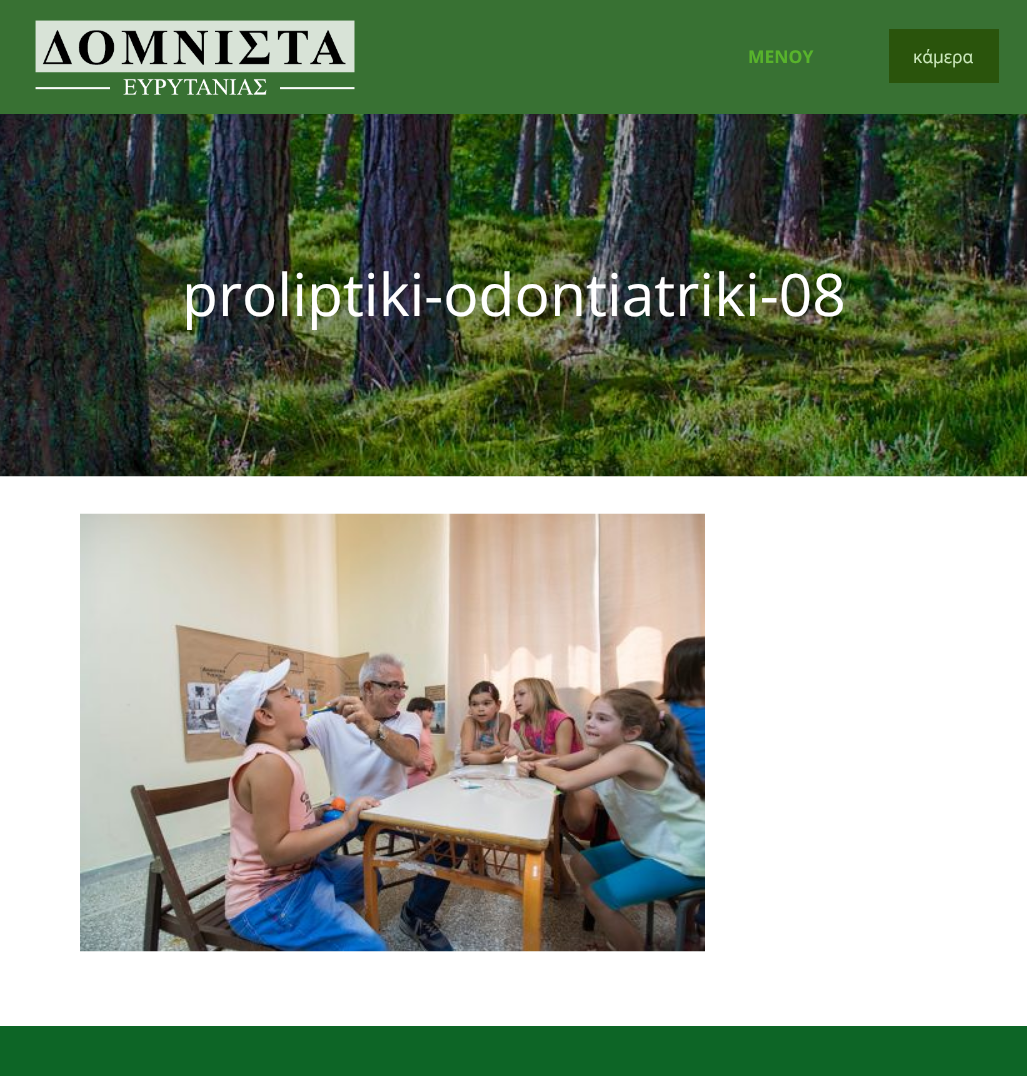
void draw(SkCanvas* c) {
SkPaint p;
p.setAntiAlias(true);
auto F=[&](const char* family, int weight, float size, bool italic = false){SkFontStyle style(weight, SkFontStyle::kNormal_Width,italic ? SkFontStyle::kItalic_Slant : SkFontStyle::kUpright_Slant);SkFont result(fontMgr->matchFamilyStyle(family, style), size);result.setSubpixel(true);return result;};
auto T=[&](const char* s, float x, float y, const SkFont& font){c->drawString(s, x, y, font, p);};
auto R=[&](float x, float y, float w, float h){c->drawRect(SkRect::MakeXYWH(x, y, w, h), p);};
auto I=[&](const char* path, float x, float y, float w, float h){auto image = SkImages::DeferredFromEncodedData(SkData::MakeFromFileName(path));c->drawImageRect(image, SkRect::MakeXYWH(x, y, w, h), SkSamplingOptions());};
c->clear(0xffffffff);
I("1.png",0,114,1027,363);
p.setColor(0xff387133);
R(0,0,1027,114);
I("2.png",35,20,320,75);
auto f1 = F("Open Sans",700,17.5);
p.setColor(0xff58b32b);
T("ΜΕΝΟΥ",748,63,f1);
p.setColor(0xff2a540c);
R(889,29,110,54);
auto f2 = F("Open Sans",400,17.5);
p.setColor(0xffcce9bd);
T("κάμερα",913,63,f2);
auto f3 = F("Open Sans",400,58.75);
p.setColor(0xffffffff);
T("proliptiki-odontiatriki-08",182,316,f3);
I("3.png",80,513,625,439);
p.setColor(0xff0d6526);
R(0,1026,1027,50);
}
